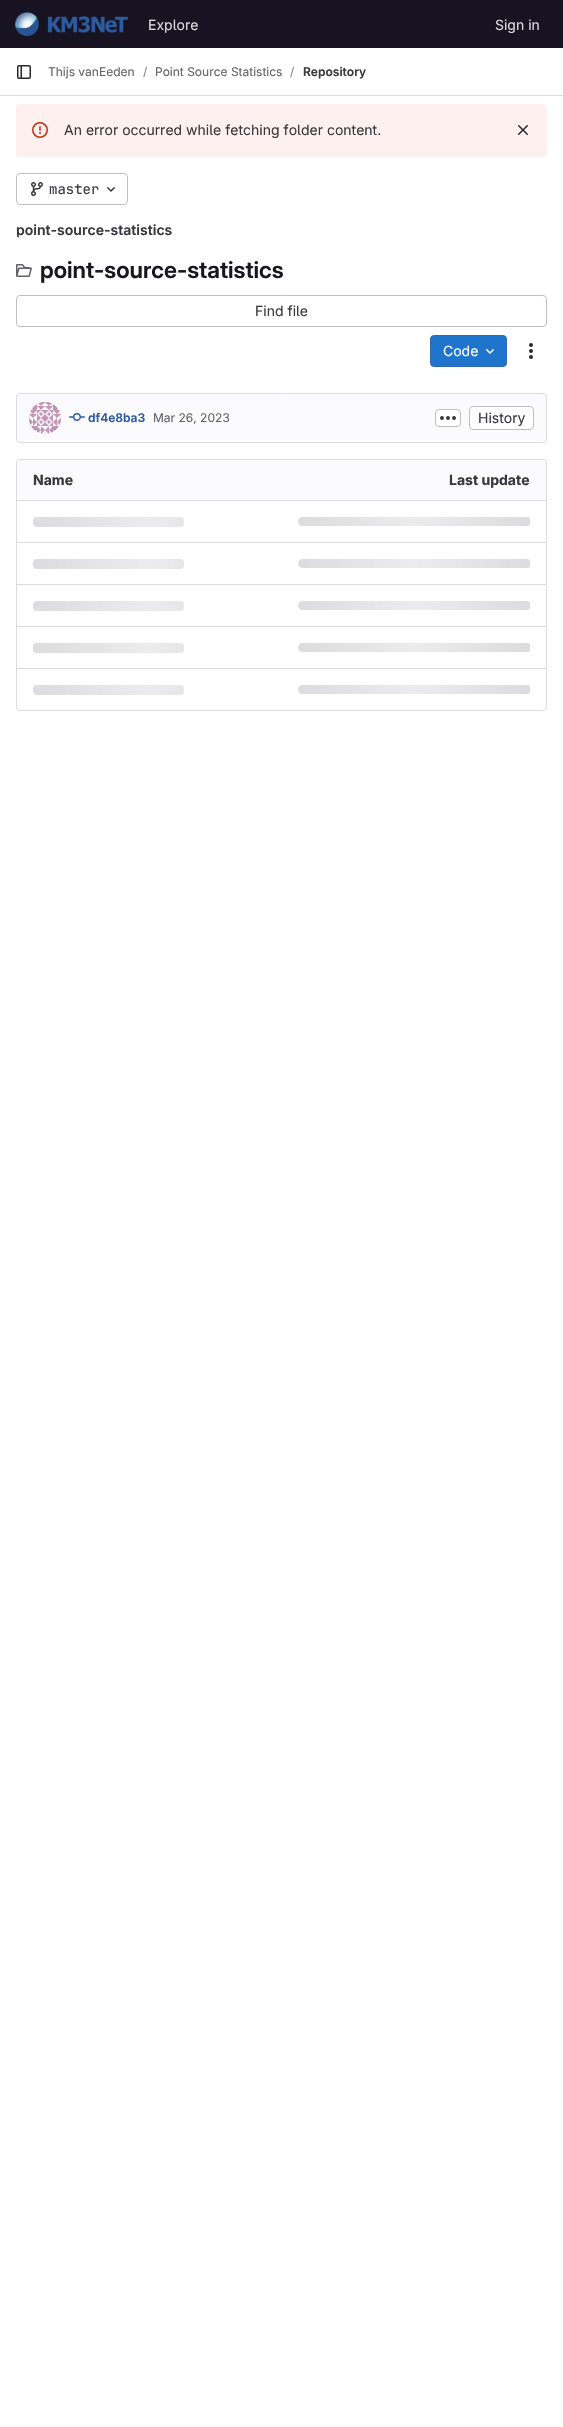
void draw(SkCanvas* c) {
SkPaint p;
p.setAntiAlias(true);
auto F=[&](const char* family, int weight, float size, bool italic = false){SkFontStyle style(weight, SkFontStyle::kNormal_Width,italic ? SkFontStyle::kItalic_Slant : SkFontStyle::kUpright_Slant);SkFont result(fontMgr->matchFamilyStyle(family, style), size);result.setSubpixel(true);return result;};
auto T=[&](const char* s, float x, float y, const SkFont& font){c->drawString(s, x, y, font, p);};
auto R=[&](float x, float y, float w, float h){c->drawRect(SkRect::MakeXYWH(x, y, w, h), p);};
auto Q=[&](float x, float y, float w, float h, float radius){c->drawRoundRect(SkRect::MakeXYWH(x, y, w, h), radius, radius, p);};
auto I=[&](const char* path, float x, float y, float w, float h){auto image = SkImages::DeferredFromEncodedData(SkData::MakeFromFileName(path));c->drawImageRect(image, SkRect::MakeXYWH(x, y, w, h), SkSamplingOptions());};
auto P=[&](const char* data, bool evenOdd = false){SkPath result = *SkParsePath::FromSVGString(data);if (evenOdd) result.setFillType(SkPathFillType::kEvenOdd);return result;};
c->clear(0xffffffff);
p.setColor(0xff171321);
R(0,0,563,48);
I("1.png",15,12,113,24);
auto f1 = F("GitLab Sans",400,14);
p.setColor(0xffdcdcde);
T("Explore",148,30,f1);
T("Sign in",495,30,f1);
R(0,95,563,1);
I("2.png",17,65,14,14);
auto f2 = F("GitLab Sans",400,12);
p.setColor(0xff626168);
T("Thijs vanEeden",48,76,f2);
p.setColor(0xff89888d);
T("/",143,76,f2);
p.setColor(0xff626168);
T("Point Source Statistics",155,76,f2);
p.setColor(0xff89888d);
T("/",290,76,f2);
auto f3 = F("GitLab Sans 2",600,12);
p.setColor(0xff3a383f);
T("Repository",303,76,f3);
p.setColor(0xfffcf1ef);
Q(16,104,531,53,4);
I("3.png",32,122,16,16);
p.setColor(0xff3a383f);
T("An error occurred while fetching folder content.",64,135,f1);
I("4.png",518,125,10,10);
p.setStroke(true);
p.setStrokeWidth(1);
p.setColor(0xffbfbfc3);
c->drawRoundRect(SkRect::MakeXYWH(16.5,173.5,111,31),3.5,3.5,p);
I("5.png",31,182,12,14);
auto f4 = F("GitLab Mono",400,14);
p.setStroke(false);
p.setColor(0xff3a383f);
T("master",49,194,f4);
I("6.png",107,187,8,5);
c->save();
c->clipPath(P("M20 221h148c2 0 4 2 4 4v9c0 2-2 4-4 4h-148c-2 0-4-2-4-4v-9c0-2 2-4 4-4z"),true);
auto f5 = F("GitLab Sans 2",600,14);
T("point-source-statistics",16,235,f5);
c->restore();
I("7.png",16,264,16,13);
auto f6 = F("GitLab Sans",600,23);
p.setColor(0xff18171d);
T("point-source-statistics",40,278,f6);
p.setStroke(true);
p.setColor(0xffbfbfc3);
c->drawRoundRect(SkRect::MakeXYWH(16.5,295.5,530,31),3.5,3.5,p);
p.setStroke(false);
p.setColor(0xff3a383f);
T("Find file",255,316,f1);
p.setColor(0xff1f75cb);
c->drawRoundRect(SkRect::MakeXYWH(430.5,335.5,76,31),3.5,3.5,p);
p.setStroke(true);
p.setColor(0xff2f68b4);
c->drawRoundRect(SkRect::MakeXYWH(430.5,335.5,76,31),3.5,3.5,p);
p.setStroke(false);
p.setColor(0xffffffff);
T("Code",443,356,f1);
I("8.png",486,349,8,5);
I("9.png",529,343,4,16);
p.setColor(0xfffbfafd);
c->drawRoundRect(SkRect::MakeXYWH(16.5,393.5,530,49),3.5,3.5,p);
p.setStroke(true);
p.setColor(0xffdcdcde);
c->drawRoundRect(SkRect::MakeXYWH(16.5,393.5,530,49),3.5,3.5,p);
I("10.png",29,402,32,32);
p.setColor(0x14050506);
c->drawCircle(45,418,15.5,p);
I("11.png",69,413,16,8);
p.setStroke(false);
p.setColor(0xff2f5ca0);
T("df4e8ba3",88,422,f3);
p.setColor(0xff626168);
T("Mar 26, 2023",153,422,f2);
p.setColor(0xffffffff);
c->drawRoundRect(SkRect::MakeXYWH(435.5,409.5,25,17),3.5,3.5,p);
p.setStroke(true);
p.setColor(0xffbfbfc3);
c->drawRoundRect(SkRect::MakeXYWH(435.5,409.5,25,17),3.5,3.5,p);
I("12.png",440,416,16,4);
p.setStroke(false);
p.setColor(0xffffffff);
c->drawRoundRect(SkRect::MakeXYWH(469.5,406.5,64,23),3.5,3.5,p);
p.setStroke(true);
p.setColor(0xffbfbfc3);
c->drawRoundRect(SkRect::MakeXYWH(469.5,406.5,64,23),3.5,3.5,p);
p.setStroke(false);
p.setColor(0xff3a383f);
T("History",478,423,f1);
p.setStroke(true);
p.setColor(0xffdcdcde);
c->drawRoundRect(SkRect::MakeXYWH(16.5,459.5,530,251),3.5,3.5,p);
p.setStroke(false);
p.setColor(0xfffbfafd);
c->drawPath(P("M20 460h262v40h-265v-37c0-1.5 1.5-3 3-3z"),p);
auto f7 = F("GitLab Sans",700,14);
p.setColor(0xff3a383f);
T("Name",33,485,f7);
p.setColor(0xfffbfafd);
c->drawPath(P("M282 460h261c1.5 0 3 1.5 3 3v37h-264z"),p);
p.setColor(0xff3a383f);
T("Last update",449,485,f7);
p.setColor(0xffdcdcde);
R(17,542,529,1);
R(17,500,529,1);
c->save();
c->clipPath(P("M302 517h225c2 0 4 2 4 4v1c0 2-2 4-4 4h-225c-2 0-4-2-4-4v-1c0-2 2-4 4-4z"),true);
{
const SkColor colors[] = {0xffdcdcde,0xffececef,0xffdcdcde};
const float stops[] = {0,.5,1};
const SkPoint ends[] = {{298,517}, {531,517}};
p.setShader(SkGradientShader::MakeLinear(ends, colors, stops, 3, SkTileMode::kClamp));
p.setAlpha(255);
}
c->drawPath(P("M302 517h228v9h-228c-2 0-4-2-4-4v-1c0-2 2-4 4-4z"),p);
c->restore();
{
const SkColor colors[] = {0xffdcdcde,0xffececef,0xffdcdcde};
const float stops[] = {0,.5,1};
const SkPoint ends[] = {{33,517}, {265,517}};
p.setShader(SkGradientShader::MakeLinear(ends, colors, stops, 3, SkTileMode::kClamp));
p.setAlpha(255);
}
Q(33,517,151,10,4);
p.setShader(nullptr);
p.setColor(0xffdcdcde);
R(17,584,529,1);
{
const SkColor colors[] = {0xffdcdcde,0xffececef,0xffdcdcde};
const float stops[] = {0,.5,1};
const SkPoint ends[] = {{33,559}, {265,559}};
p.setShader(SkGradientShader::MakeLinear(ends, colors, stops, 3, SkTileMode::kClamp));
p.setAlpha(255);
}
Q(33,559,151,10,4);
c->save();
c->clipPath(P("M302 559h225c2 0 4 2 4 4v1c0 2-2 4-4 4h-225c-2 0-4-2-4-4v-1c0-2 2-4 4-4z"),true);
{
const SkColor colors[] = {0xffdcdcde,0xffececef,0xffdcdcde};
const float stops[] = {0,.5,1};
const SkPoint ends[] = {{298,559}, {531,559}};
p.setShader(SkGradientShader::MakeLinear(ends, colors, stops, 3, SkTileMode::kClamp));
p.setAlpha(255);
}
c->drawPath(P("M302 559h228v9h-228c-2 0-4-2-4-4v-1c0-2 2-4 4-4z"),p);
c->restore();
p.setShader(nullptr);
p.setColor(0xffdcdcde);
R(17,626,529,1);
{
const SkColor colors[] = {0xffdcdcde,0xffececef,0xffdcdcde};
const float stops[] = {0,.5,1};
const SkPoint ends[] = {{33,601}, {265,601}};
p.setShader(SkGradientShader::MakeLinear(ends, colors, stops, 3, SkTileMode::kClamp));
p.setAlpha(255);
}
Q(33,601,151,10,4);
c->save();
c->clipPath(P("M302 601h225c2 0 4 2 4 4v1c0 2-2 4-4 4h-225c-2 0-4-2-4-4v-1c0-2 2-4 4-4z"),true);
{
const SkColor colors[] = {0xffdcdcde,0xffececef,0xffdcdcde};
const float stops[] = {0,.5,1};
const SkPoint ends[] = {{298,601}, {531,601}};
p.setShader(SkGradientShader::MakeLinear(ends, colors, stops, 3, SkTileMode::kClamp));
p.setAlpha(255);
}
c->drawPath(P("M302 601h228v9h-228c-2 0-4-2-4-4v-1c0-2 2-4 4-4z"),p);
c->restore();
p.setShader(nullptr);
p.setColor(0xffdcdcde);
R(17,668,529,1);
{
const SkColor colors[] = {0xffdcdcde,0xffececef,0xffdcdcde};
const float stops[] = {0,.5,1};
const SkPoint ends[] = {{33,643}, {265,643}};
p.setShader(SkGradientShader::MakeLinear(ends, colors, stops, 3, SkTileMode::kClamp));
p.setAlpha(255);
}
Q(33,643,151,10,4);
c->save();
c->clipPath(P("M302 643h225c2 0 4 2 4 4v1c0 2-2 4-4 4h-225c-2 0-4-2-4-4v-1c0-2 2-4 4-4z"),true);
{
const SkColor colors[] = {0xffdcdcde,0xffececef,0xffdcdcde};
const float stops[] = {0,.5,1};
const SkPoint ends[] = {{298,643}, {531,643}};
p.setShader(SkGradientShader::MakeLinear(ends, colors, stops, 3, SkTileMode::kClamp));
p.setAlpha(255);
}
c->drawPath(P("M302 643h228v9h-228c-2 0-4-2-4-4v-1c0-2 2-4 4-4z"),p);
c->restore();
{
const SkColor colors[] = {0xffdcdcde,0xffececef,0xffdcdcde};
const float stops[] = {0,.5,1};
const SkPoint ends[] = {{33,685}, {265,685}};
p.setShader(SkGradientShader::MakeLinear(ends, colors, stops, 3, SkTileMode::kClamp));
p.setAlpha(255);
}
Q(33,685,151,10,4);
c->save();
c->clipPath(P("M302 685h225c2 0 4 2 4 4v1c0 2-2 4-4 4h-225c-2 0-4-2-4-4v-1c0-2 2-4 4-4z"),true);
{
const SkColor colors[] = {0xffdcdcde,0xffececef,0xffdcdcde};
const float stops[] = {0,.5,1};
const SkPoint ends[] = {{298,685}, {531,685}};
p.setShader(SkGradientShader::MakeLinear(ends, colors, stops, 3, SkTileMode::kClamp));
p.setAlpha(255);
}
c->drawPath(P("M302 685h228v9h-228c-2 0-4-2-4-4v-1c0-2 2-4 4-4z"),p);
c->restore();
}
